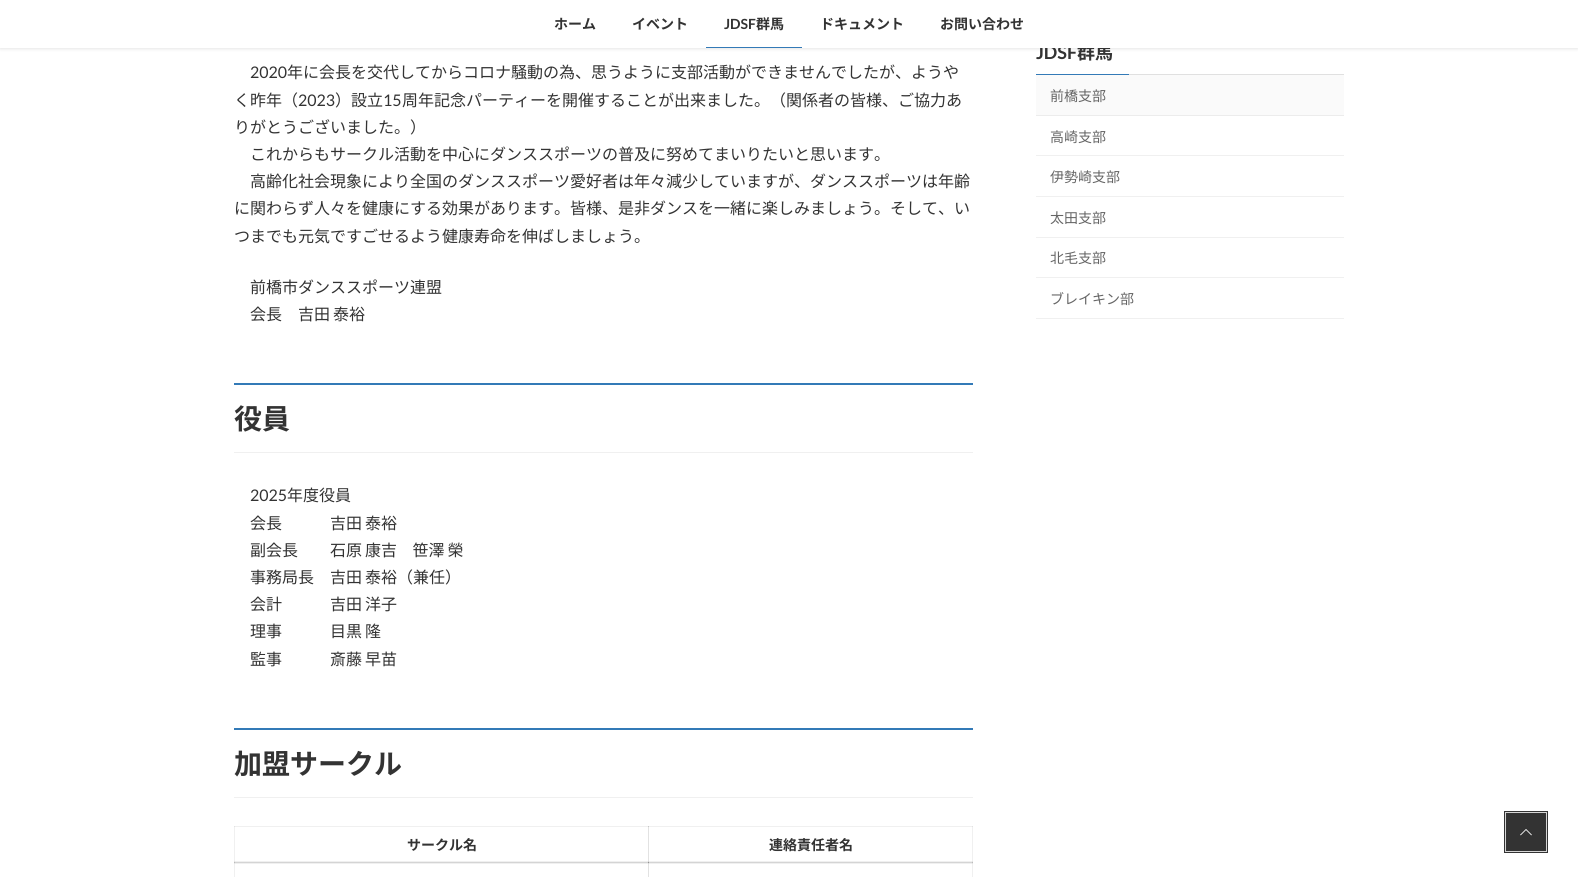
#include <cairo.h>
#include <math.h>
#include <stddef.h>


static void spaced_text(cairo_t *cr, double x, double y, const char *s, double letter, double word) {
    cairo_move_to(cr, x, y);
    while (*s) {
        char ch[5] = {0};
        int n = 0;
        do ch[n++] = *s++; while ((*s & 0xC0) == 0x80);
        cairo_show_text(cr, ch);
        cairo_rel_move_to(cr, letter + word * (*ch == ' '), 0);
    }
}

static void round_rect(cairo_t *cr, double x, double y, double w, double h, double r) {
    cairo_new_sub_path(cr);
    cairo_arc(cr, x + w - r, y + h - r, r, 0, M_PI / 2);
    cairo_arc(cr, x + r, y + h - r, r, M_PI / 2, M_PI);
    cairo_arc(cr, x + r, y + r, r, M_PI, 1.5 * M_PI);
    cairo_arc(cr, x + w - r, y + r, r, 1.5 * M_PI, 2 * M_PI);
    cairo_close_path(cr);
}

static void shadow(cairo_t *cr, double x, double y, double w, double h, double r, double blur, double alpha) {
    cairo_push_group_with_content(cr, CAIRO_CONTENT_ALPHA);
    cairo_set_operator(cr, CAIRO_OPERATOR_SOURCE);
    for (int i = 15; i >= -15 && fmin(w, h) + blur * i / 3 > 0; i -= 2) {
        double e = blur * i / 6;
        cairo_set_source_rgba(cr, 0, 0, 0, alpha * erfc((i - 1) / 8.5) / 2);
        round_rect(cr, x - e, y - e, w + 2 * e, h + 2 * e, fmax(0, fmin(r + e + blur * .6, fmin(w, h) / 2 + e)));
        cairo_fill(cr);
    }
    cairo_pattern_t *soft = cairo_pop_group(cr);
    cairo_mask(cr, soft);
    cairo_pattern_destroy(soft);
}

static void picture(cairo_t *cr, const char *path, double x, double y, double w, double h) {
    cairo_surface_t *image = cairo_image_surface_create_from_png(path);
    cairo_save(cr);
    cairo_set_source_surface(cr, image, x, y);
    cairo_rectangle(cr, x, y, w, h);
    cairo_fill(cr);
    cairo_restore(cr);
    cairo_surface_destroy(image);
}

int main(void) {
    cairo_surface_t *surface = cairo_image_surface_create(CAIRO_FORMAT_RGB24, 1578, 877);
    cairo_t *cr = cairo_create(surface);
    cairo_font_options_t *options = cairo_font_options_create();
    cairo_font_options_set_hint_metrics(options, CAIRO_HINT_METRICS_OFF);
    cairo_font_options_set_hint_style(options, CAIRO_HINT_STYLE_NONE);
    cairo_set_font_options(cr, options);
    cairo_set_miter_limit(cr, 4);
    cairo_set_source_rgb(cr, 1, 1, 1);
    cairo_paint(cr);
    cairo_set_source_rgb(cr, 0.941, 0.941, 0.941);
    cairo_rectangle(cr, 234, 861, 739, 3);
    cairo_fill(cr);
    cairo_rectangle(cr, 234, 826, 1, 37);
    cairo_fill(cr);
    cairo_set_source_rgb(cr, 0.886, 0.886, 0.886);
    cairo_rectangle(cr, 234, 861, 1, 2);
    cairo_fill(cr);
    cairo_set_source_rgb(cr, 0.941, 0.941, 0.941);
    cairo_rectangle(cr, 234, 826, 415, 1);
    cairo_fill(cr);
    cairo_set_source_rgb(cr, 0.886, 0.886, 0.886);
    cairo_rectangle(cr, 234, 826, 1, 1);
    cairo_fill(cr);
    cairo_rectangle(cr, 648, 826, 1, 37);
    cairo_fill(cr);
    cairo_set_source_rgb(cr, 0.831, 0.831, 0.831);
    cairo_rectangle(cr, 648, 861, 1, 2);
    cairo_fill(cr);
    cairo_set_source_rgb(cr, 0.941, 0.941, 0.941);
    cairo_rectangle(cr, 972, 826, 1, 37);
    cairo_fill(cr);
    cairo_set_source_rgb(cr, 0.886, 0.886, 0.886);
    cairo_rectangle(cr, 972, 861, 1, 2);
    cairo_fill(cr);
    cairo_set_source_rgb(cr, 0.941, 0.941, 0.941);
    cairo_rectangle(cr, 234, 862, 1, 15);
    cairo_fill(cr);
    cairo_set_source_rgb(cr, 0.886, 0.886, 0.886);
    cairo_rectangle(cr, 234, 862, 1, 2);
    cairo_fill(cr);
    cairo_set_source_rgb(cr, 0.831, 0.831, 0.831);
    cairo_rectangle(cr, 234, 862, 415, 1);
    cairo_fill(cr);
    cairo_set_source_rgb(cr, 0.733, 0.733, 0.733);
    cairo_rectangle(cr, 234, 862, 1, 1);
    cairo_fill(cr);
    cairo_set_source_rgb(cr, 0.886, 0.886, 0.886);
    cairo_rectangle(cr, 648, 862, 1, 15);
    cairo_fill(cr);
    cairo_set_source_rgb(cr, 0.831, 0.831, 0.831);
    cairo_rectangle(cr, 648, 862, 1, 2);
    cairo_fill(cr);
    cairo_set_source_rgb(cr, 0.941, 0.941, 0.941);
    cairo_rectangle(cr, 972, 862, 1, 15);
    cairo_fill(cr);
    cairo_set_source_rgb(cr, 0.886, 0.886, 0.886);
    cairo_rectangle(cr, 972, 862, 1, 2);
    cairo_fill(cr);
    cairo_set_source_rgb(cr, 0, 0, 0);
    shadow(cr, 0, 1, 1578, 48, 0, 1.5, 0.1);
    cairo_select_font_face(cr, "Lato", CAIRO_FONT_SLANT_NORMAL, CAIRO_FONT_WEIGHT_BOLD);
    cairo_set_font_size(cr, 18);
    cairo_set_source_rgb(cr, 0.2, 0.2, 0.2);
    cairo_move_to(cr, 1036, 59);
    cairo_show_text(cr, "JDSF");
    cairo_select_font_face(cr, "Noto Sans JP", CAIRO_FONT_SLANT_NORMAL, CAIRO_FONT_WEIGHT_BOLD);
    cairo_move_to(cr, 1077, 59);
    cairo_show_text(cr, "群馬");
    cairo_set_source_rgb(cr, 1, 1, 1);
    cairo_rectangle(cr, 0, 0, 1578, 48);
    cairo_fill(cr);
    cairo_set_font_size(cr, 14);
    cairo_set_source_rgb(cr, 0.2, 0.2, 0.2);
    cairo_move_to(cr, 554, 29);
    cairo_show_text(cr, "ホーム");
    cairo_move_to(cr, 632, 29);
    cairo_show_text(cr, "イベント");
    cairo_select_font_face(cr, "Lato", CAIRO_FONT_SLANT_NORMAL, CAIRO_FONT_WEIGHT_BOLD);
    cairo_move_to(cr, 724, 29);
    cairo_show_text(cr, "JDSF");
    cairo_select_font_face(cr, "Noto Sans JP", CAIRO_FONT_SLANT_NORMAL, CAIRO_FONT_WEIGHT_BOLD);
    cairo_move_to(cr, 756, 29);
    cairo_show_text(cr, "群馬");
    cairo_set_source_rgb(cr, 0.2, 0.478, 0.718);
    cairo_rectangle(cr, 706, 47, 96, 1);
    cairo_fill(cr);
    cairo_set_source_rgb(cr, 0.2, 0.2, 0.2);
    cairo_move_to(cr, 820, 29);
    cairo_show_text(cr, "ドキュメント");
    cairo_move_to(cr, 940, 29);
    cairo_show_text(cr, "お問い合わせ");
    cairo_select_font_face(cr, "Lato", CAIRO_FONT_SLANT_NORMAL, CAIRO_FONT_WEIGHT_NORMAL);
    cairo_set_font_size(cr, 16);
    cairo_move_to(cr, 250, 78);
    cairo_show_text(cr, "2020");
    cairo_select_font_face(cr, "Noto Sans JP", CAIRO_FONT_SLANT_NORMAL, CAIRO_FONT_WEIGHT_NORMAL);
    cairo_move_to(cr, 287, 78);
    cairo_show_text(cr, "年に会長を交代してからコロナ騒動の為、思うように支部活動ができませんでしたが、ようや");
    cairo_move_to(cr, 234, 106);
    cairo_show_text(cr, "く昨年（");
    cairo_select_font_face(cr, "Lato", CAIRO_FONT_SLANT_NORMAL, CAIRO_FONT_WEIGHT_NORMAL);
    cairo_move_to(cr, 298, 106);
    cairo_show_text(cr, "2023");
    cairo_select_font_face(cr, "Noto Sans JP", CAIRO_FONT_SLANT_NORMAL, CAIRO_FONT_WEIGHT_NORMAL);
    cairo_move_to(cr, 335, 106);
    cairo_show_text(cr, "）設立");
    cairo_select_font_face(cr, "Lato", CAIRO_FONT_SLANT_NORMAL, CAIRO_FONT_WEIGHT_NORMAL);
    cairo_move_to(cr, 383, 106);
    cairo_show_text(cr, "15");
    cairo_select_font_face(cr, "Noto Sans JP", CAIRO_FONT_SLANT_NORMAL, CAIRO_FONT_WEIGHT_NORMAL);
    cairo_move_to(cr, 402, 106);
    cairo_show_text(cr, "周年記念パーティーを開催することが出来ました。（関係者の皆様、ご協力あ");
    cairo_move_to(cr, 234, 133);
    cairo_show_text(cr, "りがとうございました。）");
    cairo_move_to(cr, 250, 160);
    cairo_show_text(cr, "これからもサークル活動を中心にダンススポーツの普及に努めてまいりたいと思います。");
    cairo_move_to(cr, 250, 187);
    cairo_show_text(cr, "高齢化社会現象により全国のダンススポーツ愛好者は年々減少していますが、ダンススポーツは年齢");
    cairo_move_to(cr, 234, 214);
    cairo_show_text(cr, "に関わらず人々を健康にする効果があります。皆様、是非ダンスを一緒に楽しみましょう。そして、い");
    cairo_move_to(cr, 234, 242);
    cairo_show_text(cr, "つまでも元気ですごせるよう健康寿命を伸ばしましょう。");
    cairo_move_to(cr, 250, 293);
    cairo_show_text(cr, "前橋市ダンススポーツ連盟");
    spaced_text(cr, 250, 320, "会長　吉田 泰裕", 0, -0.5);
    cairo_set_source_rgb(cr, 0.2, 0.478, 0.718);
    cairo_rectangle(cr, 234, 383, 739, 2);
    cairo_fill(cr);
    cairo_set_source_rgb(cr, 0.941, 0.941, 0.941);
    cairo_rectangle(cr, 234, 452, 739, 1);
    cairo_fill(cr);
    cairo_select_font_face(cr, "Noto Sans JP", CAIRO_FONT_SLANT_NORMAL, CAIRO_FONT_WEIGHT_BOLD);
    cairo_set_font_size(cr, 28);
    cairo_set_source_rgb(cr, 0.2, 0.2, 0.2);
    cairo_move_to(cr, 234, 429);
    cairo_show_text(cr, "役員");
    cairo_select_font_face(cr, "Lato", CAIRO_FONT_SLANT_NORMAL, CAIRO_FONT_WEIGHT_NORMAL);
    cairo_set_font_size(cr, 16);
    cairo_move_to(cr, 250, 501);
    cairo_show_text(cr, "2025");
    cairo_select_font_face(cr, "Noto Sans JP", CAIRO_FONT_SLANT_NORMAL, CAIRO_FONT_WEIGHT_NORMAL);
    cairo_move_to(cr, 287, 501);
    cairo_show_text(cr, "年度役員");
    spaced_text(cr, 250, 529, "会長　　　吉田 泰裕", 0, -0.5);
    spaced_text(cr, 250, 556, "副会長　　石原 康吉     笹澤 榮", 0, -0.5);
    spaced_text(cr, 250, 583, "事務局長　吉田 泰裕（兼任）", 0, -0.5);
    spaced_text(cr, 250, 610, "会計　　　吉田 洋子", 0, -0.5);
    spaced_text(cr, 250, 637, "理事　　　目黒 隆", 0, -0.5);
    spaced_text(cr, 250, 665, "監事　　　斎藤 早苗", 0, -0.5);
    cairo_set_source_rgb(cr, 0.2, 0.478, 0.718);
    cairo_rectangle(cr, 234, 728, 739, 2);
    cairo_fill(cr);
    cairo_set_source_rgb(cr, 0.941, 0.941, 0.941);
    cairo_rectangle(cr, 234, 797, 739, 1);
    cairo_fill(cr);
    cairo_select_font_face(cr, "Noto Sans JP", CAIRO_FONT_SLANT_NORMAL, CAIRO_FONT_WEIGHT_BOLD);
    cairo_set_font_size(cr, 28);
    cairo_set_source_rgb(cr, 0.2, 0.2, 0.2);
    cairo_move_to(cr, 234, 774);
    cairo_show_text(cr, "加盟サークル");
    cairo_set_font_size(cr, 14);
    cairo_move_to(cr, 407, 850);
    cairo_show_text(cr, "サークル名");
    cairo_set_source_rgb(cr, 0.941, 0.941, 0.941);
    cairo_rectangle(cr, 648, 826, 325, 1);
    cairo_fill(cr);
    cairo_set_source_rgb(cr, 0.78, 0.78, 0.78);
    cairo_rectangle(cr, 648, 826, 1, 1);
    cairo_fill(cr);
    cairo_set_source_rgb(cr, 0.886, 0.886, 0.886);
    cairo_rectangle(cr, 972, 826, 1, 1);
    cairo_fill(cr);
    cairo_set_source_rgb(cr, 0.2, 0.2, 0.2);
    cairo_move_to(cr, 769, 850);
    cairo_show_text(cr, "連絡責任者名");
    cairo_set_source_rgb(cr, 0.831, 0.831, 0.831);
    cairo_rectangle(cr, 648, 862, 325, 1);
    cairo_fill(cr);
    cairo_set_source_rgb(cr, 0.573, 0.573, 0.573);
    cairo_rectangle(cr, 648, 862, 1, 1);
    cairo_fill(cr);
    cairo_set_source_rgb(cr, 0.733, 0.733, 0.733);
    cairo_rectangle(cr, 972, 862, 1, 1);
    cairo_fill(cr);
    cairo_set_source_rgb(cr, 0.878, 0.878, 0.878);
    cairo_rectangle(cr, 1129, 74, 215, 1);
    cairo_fill(cr);
    cairo_set_source_rgb(cr, 0.2, 0.478, 0.718);
    cairo_rectangle(cr, 1036, 74, 93, 1);
    cairo_fill(cr);
    cairo_set_source_rgb(cr, 0.98, 0.98, 0.98);
    cairo_rectangle(cr, 1036, 75, 308, 40);
    cairo_fill(cr);
    cairo_set_source_rgb(cr, 0.922, 0.922, 0.922);
    cairo_rectangle(cr, 1036, 115, 308, 1);
    cairo_fill(cr);
    cairo_select_font_face(cr, "Noto Sans JP", CAIRO_FONT_SLANT_NORMAL, CAIRO_FONT_WEIGHT_NORMAL);
    cairo_set_source_rgb(cr, 0.4, 0.4, 0.4);
    cairo_move_to(cr, 1050, 101);
    cairo_show_text(cr, "前橋支部");
    cairo_set_source_rgb(cr, 0.941, 0.941, 0.941);
    cairo_rectangle(cr, 1036, 155, 308, 1);
    cairo_fill(cr);
    cairo_set_source_rgb(cr, 0.4, 0.4, 0.4);
    cairo_move_to(cr, 1050, 142);
    cairo_show_text(cr, "高崎支部");
    cairo_set_source_rgb(cr, 0.941, 0.941, 0.941);
    cairo_rectangle(cr, 1036, 196, 308, 1);
    cairo_fill(cr);
    cairo_set_source_rgb(cr, 0.4, 0.4, 0.4);
    cairo_move_to(cr, 1050, 182);
    cairo_show_text(cr, "伊勢崎支部");
    cairo_set_source_rgb(cr, 0.941, 0.941, 0.941);
    cairo_rectangle(cr, 1036, 237, 308, 1);
    cairo_fill(cr);
    cairo_set_source_rgb(cr, 0.4, 0.4, 0.4);
    cairo_move_to(cr, 1050, 223);
    cairo_show_text(cr, "太田支部");
    cairo_set_source_rgb(cr, 0.941, 0.941, 0.941);
    cairo_rectangle(cr, 1036, 277, 308, 1);
    cairo_fill(cr);
    cairo_set_source_rgb(cr, 0.4, 0.4, 0.4);
    cairo_move_to(cr, 1050, 263);
    cairo_show_text(cr, "北毛支部");
    cairo_set_source_rgb(cr, 0.941, 0.941, 0.941);
    cairo_rectangle(cr, 1036, 318, 308, 1);
    cairo_fill(cr);
    cairo_set_source_rgb(cr, 0.4, 0.4, 0.4);
    cairo_move_to(cr, 1050, 304);
    cairo_show_text(cr, "ブレイキン部");
    cairo_rectangle(cr, 1505, 812, 42, 40);
    cairo_set_source_rgb(cr, 0.2, 0.2, 0.2);
    cairo_stroke(cr);
    cairo_rectangle(cr, 1505.5, 812.5, 41, 39);
    cairo_set_source_rgb(cr, 0.839, 0.839, 0.839);
    cairo_set_line_width(cr, 1);
    cairo_stroke(cr);
    cairo_set_source_rgb(cr, 0.2, 0.2, 0.2);
    cairo_rectangle(cr, 1506, 813, 40, 38);
    cairo_fill(cr);
    picture(cr, "img1.png", 1520, 829, 12, 7);
    cairo_surface_write_to_png(surface, "page.png");
    cairo_font_options_destroy(options);
    cairo_destroy(cr);
    cairo_surface_destroy(surface);
    return 0;
}
